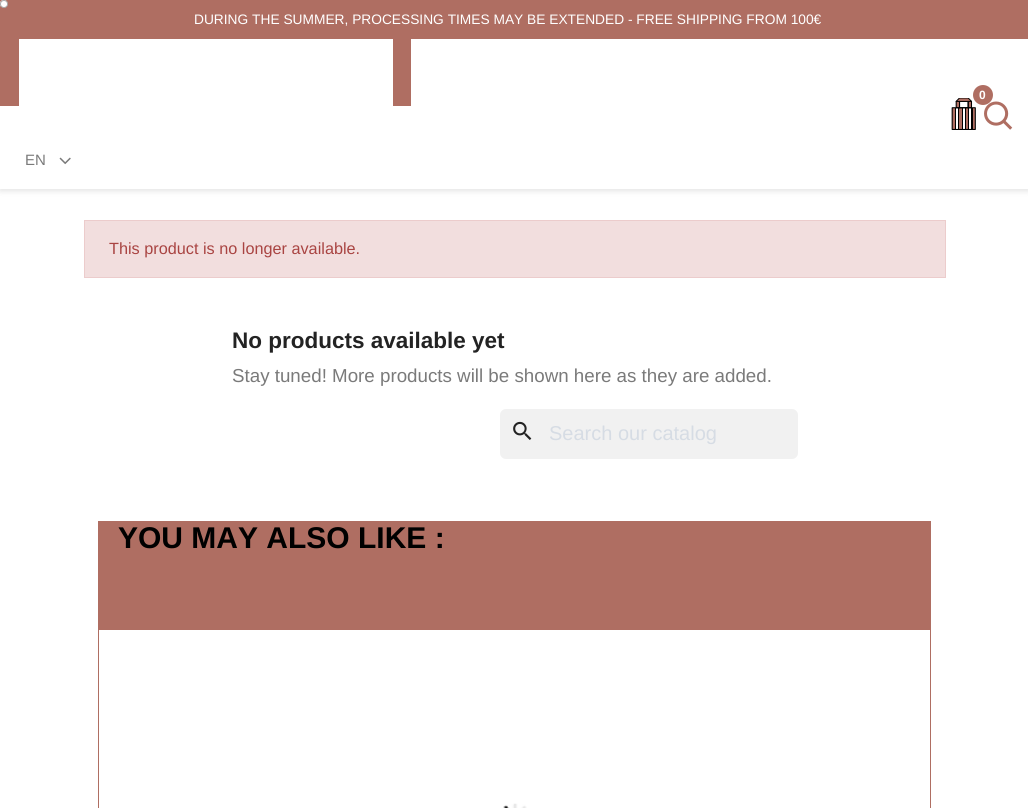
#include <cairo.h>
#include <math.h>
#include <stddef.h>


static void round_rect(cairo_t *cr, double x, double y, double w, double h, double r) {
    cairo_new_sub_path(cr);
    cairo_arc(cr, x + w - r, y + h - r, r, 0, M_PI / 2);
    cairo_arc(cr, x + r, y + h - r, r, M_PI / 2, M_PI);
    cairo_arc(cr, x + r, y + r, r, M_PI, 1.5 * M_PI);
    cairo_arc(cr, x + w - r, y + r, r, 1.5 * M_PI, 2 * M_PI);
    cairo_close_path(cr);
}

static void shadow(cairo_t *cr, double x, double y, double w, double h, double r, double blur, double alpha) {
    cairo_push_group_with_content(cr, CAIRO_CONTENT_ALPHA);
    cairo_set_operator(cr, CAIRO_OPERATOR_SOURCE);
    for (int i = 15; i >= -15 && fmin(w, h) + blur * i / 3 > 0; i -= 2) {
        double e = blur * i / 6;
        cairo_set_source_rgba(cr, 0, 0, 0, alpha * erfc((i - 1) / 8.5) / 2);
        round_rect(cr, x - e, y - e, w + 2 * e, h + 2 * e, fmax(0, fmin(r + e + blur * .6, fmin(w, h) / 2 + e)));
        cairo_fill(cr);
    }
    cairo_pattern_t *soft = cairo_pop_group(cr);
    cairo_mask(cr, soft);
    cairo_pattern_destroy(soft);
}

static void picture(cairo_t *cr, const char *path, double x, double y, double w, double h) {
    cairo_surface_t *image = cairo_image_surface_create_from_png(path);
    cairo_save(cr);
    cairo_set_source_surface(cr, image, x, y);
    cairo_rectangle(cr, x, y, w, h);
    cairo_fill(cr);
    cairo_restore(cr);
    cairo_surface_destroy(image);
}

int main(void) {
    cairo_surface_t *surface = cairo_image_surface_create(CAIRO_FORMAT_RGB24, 1028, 808);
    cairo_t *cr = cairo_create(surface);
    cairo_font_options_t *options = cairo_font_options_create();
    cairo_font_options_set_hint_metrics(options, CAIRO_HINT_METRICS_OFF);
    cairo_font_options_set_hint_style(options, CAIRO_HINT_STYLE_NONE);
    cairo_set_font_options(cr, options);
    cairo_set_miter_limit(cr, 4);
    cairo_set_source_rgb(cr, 1, 1, 1);
    cairo_paint(cr);
    cairo_set_source_rgb(cr, 0, 0, 0);
    shadow(cr, 0, 3, 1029, 188, 0, 3, 0.11);
    cairo_set_source_rgb(cr, 0.686, 0.431, 0.384);
    cairo_rectangle(cr, 0, 0, 1028, 39);
    cairo_fill(cr);
    picture(cr, "img1.png", 0, 0, 8, 8);
    cairo_arc(cr, 4, 4, 3.5, 0, 2 * M_PI);
    cairo_set_source_rgb(cr, 0.667, 0.667, 0.667);
    cairo_set_line_width(cr, 1);
    cairo_stroke(cr);
    cairo_set_source_rgb(cr, 1, 1, 1);
    cairo_rectangle(cr, 0, 39, 1028, 150);
    cairo_fill(cr);
    cairo_select_font_face(cr, "Liberation Sans", CAIRO_FONT_SLANT_NORMAL, CAIRO_FONT_WEIGHT_NORMAL);
    cairo_set_font_size(cr, 13.75);
    cairo_move_to(cr, 194, 24);
    cairo_show_text(cr, "DURING THE SUMMER, PROCESSING TIMES MAY BE EXTENDED - FREE SHIPPING FROM 100€");
    picture(cr, "img2.png", 951, 98, 25, 32);
    cairo_set_source_rgb(cr, 0.686, 0.431, 0.384);
    cairo_arc(cr, 983, 95, 10, 0, 2 * M_PI);
    cairo_fill(cr);
    cairo_select_font_face(cr, "Liberation Sans", CAIRO_FONT_SLANT_NORMAL, CAIRO_FONT_WEIGHT_BOLD);
    cairo_set_font_size(cr, 12);
    cairo_set_source_rgb(cr, 1, 1, 1);
    cairo_move_to(cr, 979, 99);
    cairo_show_text(cr, "0");
    picture(cr, "img3.png", 984, 101, 29, 29);
    cairo_set_source_rgb(cr, 0.686, 0.431, 0.384);
    cairo_rectangle(cr, 0, 39, 411, 67);
    cairo_fill(cr);
    cairo_set_source_rgb(cr, 1, 1, 1);
    cairo_rectangle(cr, 19, 39, 374, 67);
    cairo_fill(cr);
    cairo_select_font_face(cr, "Liberation Sans", CAIRO_FONT_SLANT_NORMAL, CAIRO_FONT_WEIGHT_NORMAL);
    cairo_set_font_size(cr, 15);
    cairo_set_source_rgb(cr, 0.478, 0.478, 0.478);
    cairo_move_to(cr, 25, 165);
    cairo_show_text(cr, "EN");
    picture(cr, "img4.png", 59, 157, 12, 8);
    cairo_set_source_rgb(cr, 0.949, 0.871, 0.871);
    cairo_rectangle(cr, 84.5, 220.5, 861, 57);
    cairo_fill_preserve(cr);
    cairo_set_source_rgb(cr, 0.922, 0.8, 0.8);
    cairo_stroke(cr);
    cairo_set_font_size(cr, 16.25);
    cairo_set_source_rgb(cr, 0.663, 0.267, 0.259);
    cairo_move_to(cr, 109, 254);
    cairo_show_text(cr, "This product is no longer available.");
    cairo_select_font_face(cr, "Liberation Sans", CAIRO_FONT_SLANT_NORMAL, CAIRO_FONT_WEIGHT_BOLD);
    cairo_set_font_size(cr, 22.5);
    cairo_set_source_rgb(cr, 0.137, 0.137, 0.137);
    cairo_move_to(cr, 232, 348);
    cairo_show_text(cr, "No products available yet");
    cairo_select_font_face(cr, "Liberation Sans", CAIRO_FONT_SLANT_NORMAL, CAIRO_FONT_WEIGHT_NORMAL);
    cairo_set_font_size(cr, 18.75);
    cairo_set_source_rgb(cr, 0.478, 0.478, 0.478);
    cairo_move_to(cr, 232, 382);
    cairo_show_text(cr, "Stay tuned! More products will be shown here as they are added.");
    cairo_set_source_rgb(cr, 0.945, 0.945, 0.945);
    round_rect(cr, 500, 409, 298, 50, 6);
    cairo_fill(cr);
    picture(cr, "img5.png", 513, 421, 19, 19);
    cairo_set_font_size(cr, 20);
    cairo_set_source_rgb(cr, 0.839, 0.863, 0.894);
    cairo_move_to(cr, 549, 440);
    cairo_show_text(cr, "Search our catalog");
    cairo_set_source_rgb(cr, 0.686, 0.431, 0.384);
    cairo_rectangle(cr, 98, 521, 833, 287);
    cairo_fill(cr);
    cairo_select_font_face(cr, "Liberation Sans", CAIRO_FONT_SLANT_NORMAL, CAIRO_FONT_WEIGHT_BOLD);
    cairo_set_font_size(cr, 30);
    cairo_set_source_rgb(cr, 0, 0, 0);
    cairo_move_to(cr, 118, 548);
    cairo_show_text(cr, "YOU MAY ALSO LIKE :");
    cairo_set_source_rgb(cr, 1, 1, 1);
    cairo_rectangle(cr, 99, 630, 831, 178);
    cairo_fill(cr);
    picture(cr, "img6.png", 503, 803, 24, 5);
    cairo_surface_write_to_png(surface, "page.png");
    cairo_font_options_destroy(options);
    cairo_destroy(cr);
    cairo_surface_destroy(surface);
    return 0;
}
